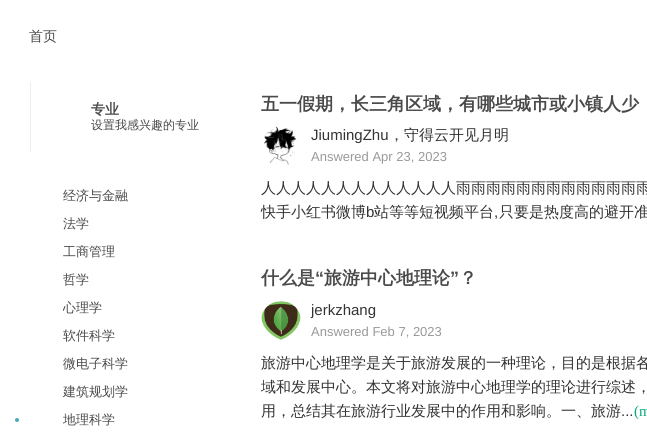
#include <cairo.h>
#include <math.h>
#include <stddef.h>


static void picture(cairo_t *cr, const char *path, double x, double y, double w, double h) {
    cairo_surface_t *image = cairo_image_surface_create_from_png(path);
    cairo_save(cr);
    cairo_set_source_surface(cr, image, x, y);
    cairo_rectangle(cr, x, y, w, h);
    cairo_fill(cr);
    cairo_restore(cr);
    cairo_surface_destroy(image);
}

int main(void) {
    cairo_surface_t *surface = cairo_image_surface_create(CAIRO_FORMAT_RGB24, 647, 434);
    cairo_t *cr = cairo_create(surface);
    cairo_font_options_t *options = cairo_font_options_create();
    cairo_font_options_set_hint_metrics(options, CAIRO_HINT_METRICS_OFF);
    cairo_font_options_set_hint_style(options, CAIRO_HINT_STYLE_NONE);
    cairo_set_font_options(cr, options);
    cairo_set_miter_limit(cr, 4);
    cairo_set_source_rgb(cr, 1, 1, 1);
    cairo_paint(cr);
    cairo_select_font_face(cr, "WenQuanYi Zen Hei Medium", CAIRO_FONT_SLANT_NORMAL, CAIRO_FONT_WEIGHT_NORMAL);
    cairo_set_font_size(cr, 14);
    cairo_set_source_rgb(cr, 0.29, 0.29, 0.29);
    cairo_move_to(cr, 29, 41);
    cairo_show_text(cr, "首页");
    cairo_set_source_rgb(cr, 0.929, 0.929, 0.929);
    cairo_rectangle(cr, 30, 82, 1, 70);
    cairo_fill(cr);
    cairo_select_font_face(cr, "WenQuanYi Zen Hei", CAIRO_FONT_SLANT_NORMAL, CAIRO_FONT_WEIGHT_BOLD);
    cairo_set_source_rgb(cr, 0.29, 0.29, 0.29);
    cairo_move_to(cr, 91, 114);
    cairo_show_text(cr, "专业");
    cairo_select_font_face(cr, "WenQuanYi Zen Hei Medium", CAIRO_FONT_SLANT_NORMAL, CAIRO_FONT_WEIGHT_NORMAL);
    cairo_set_font_size(cr, 12);
    cairo_move_to(cr, 91, 129);
    cairo_show_text(cr, "设置我感兴趣的专业");
    cairo_set_font_size(cr, 13);
    cairo_move_to(cr, 63, 200);
    cairo_show_text(cr, "经济与金融");
    cairo_move_to(cr, 63, 228);
    cairo_show_text(cr, "法学");
    cairo_move_to(cr, 63, 256);
    cairo_show_text(cr, "工商管理");
    cairo_move_to(cr, 63, 284);
    cairo_show_text(cr, "哲学");
    cairo_move_to(cr, 63, 312);
    cairo_show_text(cr, "心理学");
    cairo_move_to(cr, 63, 340);
    cairo_show_text(cr, "软件科学");
    cairo_move_to(cr, 63, 368);
    cairo_show_text(cr, "微电子科学");
    cairo_move_to(cr, 63, 396);
    cairo_show_text(cr, "建筑规划学");
    cairo_set_source_rgb(cr, 0.275, 0.675, 0.714);
    cairo_new_path(cr);
    cairo_arc(cr, 17, 420, 2, 0, 2 * M_PI);
    cairo_fill(cr);
    cairo_set_source_rgb(cr, 0.29, 0.29, 0.29);
    cairo_move_to(cr, 63, 424);
    cairo_show_text(cr, "地理科学");
    cairo_select_font_face(cr, "WenQuanYi Zen Hei", CAIRO_FONT_SLANT_NORMAL, CAIRO_FONT_WEIGHT_BOLD);
    cairo_set_font_size(cr, 18);
    cairo_move_to(cr, 261, 110);
    cairo_show_text(cr, "五一假期，长三角区域，有哪些城市或小镇人少");
    picture(cr, "img1.png", 263, 126, 34, 39);
    cairo_select_font_face(cr, "Liberation Sans", CAIRO_FONT_SLANT_NORMAL, CAIRO_FONT_WEIGHT_NORMAL);
    cairo_set_font_size(cr, 15);
    cairo_set_source_rgb(cr, 0.2, 0.2, 0.2);
    cairo_move_to(cr, 311, 140);
    cairo_show_text(cr, "JiumingZhu");
    cairo_select_font_face(cr, "WenQuanYi Zen Hei Medium", CAIRO_FONT_SLANT_NORMAL, CAIRO_FONT_WEIGHT_NORMAL);
    cairo_move_to(cr, 389, 140);
    cairo_show_text(cr, "，守得云开见月明");
    cairo_select_font_face(cr, "Liberation Sans", CAIRO_FONT_SLANT_NORMAL, CAIRO_FONT_WEIGHT_NORMAL);
    cairo_set_font_size(cr, 13);
    cairo_set_source_rgb(cr, 0.6, 0.6, 0.6);
    cairo_move_to(cr, 311, 161);
    cairo_show_text(cr, "Answered Apr 23, 2023");
    cairo_select_font_face(cr, "WenQuanYi Zen Hei Medium", CAIRO_FONT_SLANT_NORMAL, CAIRO_FONT_WEIGHT_NORMAL);
    cairo_set_font_size(cr, 15);
    cairo_set_source_rgb(cr, 0.2, 0.2, 0.2);
    cairo_move_to(cr, 261, 193);
    cairo_show_text(cr, "人人人人人人人人人人人人人雨雨雨雨雨雨雨雨雨雨雨雨雨");
    cairo_move_to(cr, 261, 217);
    cairo_show_text(cr, "快手小红书微博");
    cairo_select_font_face(cr, "Liberation Sans", CAIRO_FONT_SLANT_NORMAL, CAIRO_FONT_WEIGHT_NORMAL);
    cairo_move_to(cr, 366, 217);
    cairo_show_text(cr, "b");
    cairo_select_font_face(cr, "WenQuanYi Zen Hei Medium", CAIRO_FONT_SLANT_NORMAL, CAIRO_FONT_WEIGHT_NORMAL);
    cairo_move_to(cr, 374, 217);
    cairo_show_text(cr, "站等等短视频平台");
    cairo_select_font_face(cr, "Liberation Sans", CAIRO_FONT_SLANT_NORMAL, CAIRO_FONT_WEIGHT_NORMAL);
    cairo_move_to(cr, 494, 217);
    cairo_show_text(cr, ",");
    cairo_select_font_face(cr, "WenQuanYi Zen Hei Medium", CAIRO_FONT_SLANT_NORMAL, CAIRO_FONT_WEIGHT_NORMAL);
    cairo_move_to(cr, 499, 217);
    cairo_show_text(cr, "只要是热度高的避开准");
    cairo_select_font_face(cr, "WenQuanYi Zen Hei", CAIRO_FONT_SLANT_NORMAL, CAIRO_FONT_WEIGHT_BOLD);
    cairo_set_font_size(cr, 18);
    cairo_set_source_rgb(cr, 0.29, 0.29, 0.29);
    cairo_move_to(cr, 261, 284);
    cairo_show_text(cr, "什么是");
    cairo_select_font_face(cr, "Liberation Sans", CAIRO_FONT_SLANT_NORMAL, CAIRO_FONT_WEIGHT_BOLD);
    cairo_move_to(cr, 315, 284);
    cairo_show_text(cr, "“");
    cairo_select_font_face(cr, "WenQuanYi Zen Hei", CAIRO_FONT_SLANT_NORMAL, CAIRO_FONT_WEIGHT_BOLD);
    cairo_move_to(cr, 324, 284);
    cairo_show_text(cr, "旅游中心地理论");
    cairo_select_font_face(cr, "Liberation Sans", CAIRO_FONT_SLANT_NORMAL, CAIRO_FONT_WEIGHT_BOLD);
    cairo_move_to(cr, 450, 284);
    cairo_show_text(cr, "”");
    cairo_select_font_face(cr, "WenQuanYi Zen Hei", CAIRO_FONT_SLANT_NORMAL, CAIRO_FONT_WEIGHT_BOLD);
    cairo_move_to(cr, 459, 284);
    cairo_show_text(cr, "？");
    picture(cr, "img2.png", 261, 301, 40, 39);
    cairo_select_font_face(cr, "Liberation Sans", CAIRO_FONT_SLANT_NORMAL, CAIRO_FONT_WEIGHT_NORMAL);
    cairo_set_font_size(cr, 15);
    cairo_set_source_rgb(cr, 0.2, 0.2, 0.2);
    cairo_move_to(cr, 311, 315);
    cairo_show_text(cr, "jerkzhang");
    cairo_set_font_size(cr, 13);
    cairo_set_source_rgb(cr, 0.6, 0.6, 0.6);
    cairo_move_to(cr, 311, 336);
    cairo_show_text(cr, "Answered Feb 7, 2023");
    cairo_select_font_face(cr, "WenQuanYi Zen Hei Medium", CAIRO_FONT_SLANT_NORMAL, CAIRO_FONT_WEIGHT_NORMAL);
    cairo_set_font_size(cr, 15);
    cairo_set_source_rgb(cr, 0.2, 0.2, 0.2);
    cairo_move_to(cr, 261, 368);
    cairo_show_text(cr, "旅游中心地理学是关于旅游发展的一种理论，目的是根据各");
    cairo_move_to(cr, 261, 392);
    cairo_show_text(cr, "域和发展中心。本文将对旅游中心地理学的理论进行综述，");
    cairo_move_to(cr, 261, 416);
    cairo_show_text(cr, "用，总结其在旅游行业发展中的作用和影响。一、旅游");
    cairo_select_font_face(cr, "Liberation Sans", CAIRO_FONT_SLANT_NORMAL, CAIRO_FONT_WEIGHT_NORMAL);
    cairo_move_to(cr, 621, 416);
    cairo_show_text(cr, "...");
    cairo_select_font_face(cr, "Liberation Serif", CAIRO_FONT_SLANT_NORMAL, CAIRO_FONT_WEIGHT_NORMAL);
    cairo_set_source_rgb(cr, 0.012, 0.659, 0.486);
    cairo_move_to(cr, 634, 416);
    cairo_show_text(cr, "(m");
    cairo_surface_write_to_png(surface, "page.png");
    cairo_font_options_destroy(options);
    cairo_destroy(cr);
    cairo_surface_destroy(surface);
    return 0;
}
